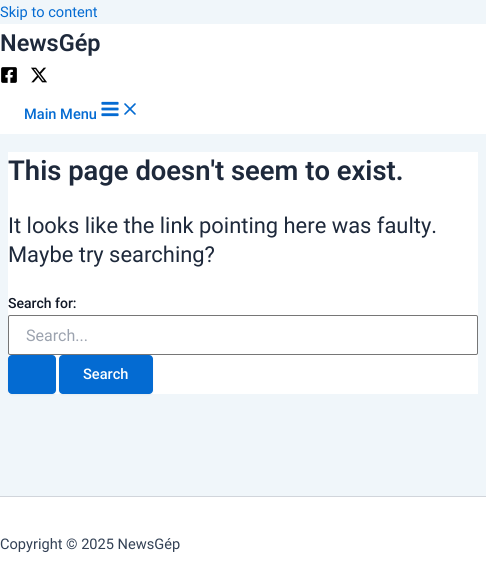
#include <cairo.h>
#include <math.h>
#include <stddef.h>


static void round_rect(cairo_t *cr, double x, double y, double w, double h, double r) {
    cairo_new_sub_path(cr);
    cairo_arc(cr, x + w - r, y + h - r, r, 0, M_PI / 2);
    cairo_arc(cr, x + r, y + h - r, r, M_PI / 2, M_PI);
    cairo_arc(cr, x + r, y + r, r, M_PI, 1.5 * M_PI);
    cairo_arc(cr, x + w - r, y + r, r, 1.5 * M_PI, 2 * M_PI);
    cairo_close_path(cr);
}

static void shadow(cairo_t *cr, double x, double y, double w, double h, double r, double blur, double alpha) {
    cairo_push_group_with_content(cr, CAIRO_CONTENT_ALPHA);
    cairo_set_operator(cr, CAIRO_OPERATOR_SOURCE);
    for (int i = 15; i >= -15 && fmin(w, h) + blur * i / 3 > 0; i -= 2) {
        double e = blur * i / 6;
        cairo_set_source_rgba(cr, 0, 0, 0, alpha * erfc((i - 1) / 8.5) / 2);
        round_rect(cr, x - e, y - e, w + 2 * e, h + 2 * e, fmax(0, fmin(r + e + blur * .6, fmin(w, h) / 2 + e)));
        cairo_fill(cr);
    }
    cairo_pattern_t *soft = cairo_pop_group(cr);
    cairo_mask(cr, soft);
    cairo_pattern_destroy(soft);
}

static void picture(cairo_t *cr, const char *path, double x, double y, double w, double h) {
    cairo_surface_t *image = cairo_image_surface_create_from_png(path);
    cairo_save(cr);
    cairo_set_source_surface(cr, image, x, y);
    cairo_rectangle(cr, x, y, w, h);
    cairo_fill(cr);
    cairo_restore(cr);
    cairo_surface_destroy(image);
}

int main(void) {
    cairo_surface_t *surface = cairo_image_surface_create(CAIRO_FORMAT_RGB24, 486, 573);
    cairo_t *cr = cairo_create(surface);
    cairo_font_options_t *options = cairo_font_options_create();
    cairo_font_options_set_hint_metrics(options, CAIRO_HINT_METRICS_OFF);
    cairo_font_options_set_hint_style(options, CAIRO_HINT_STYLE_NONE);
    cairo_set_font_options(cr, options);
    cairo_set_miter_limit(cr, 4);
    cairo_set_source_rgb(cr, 0.941, 0.961, 0.98);
    cairo_paint(cr);
    cairo_select_font_face(cr, "Roboto", CAIRO_FONT_SLANT_NORMAL, CAIRO_FONT_WEIGHT_NORMAL);
    cairo_set_font_size(cr, 14.6);
    cairo_set_source_rgb(cr, 0.016, 0.42, 0.824);
    cairo_move_to(cr, 0, 17);
    cairo_show_text(cr, "Skip to content");
    cairo_set_source_rgb(cr, 1, 1, 1);
    cairo_rectangle(cr, 0, 24, 486, 110);
    cairo_fill(cr);
    cairo_select_font_face(cr, "Roboto SemiBold", CAIRO_FONT_SLANT_NORMAL, CAIRO_FONT_WEIGHT_NORMAL);
    cairo_set_font_size(cr, 23.5);
    cairo_set_source_rgb(cr, 0.118, 0.161, 0.231);
    cairo_move_to(cr, 0, 51);
    cairo_show_text(cr, "NewsGép");
    picture(cr, "img1.png", 1, 67, 16, 16);
    picture(cr, "img2.png", 31, 67, 16, 16);
    cairo_select_font_face(cr, "Roboto Medium", CAIRO_FONT_SLANT_NORMAL, CAIRO_FONT_WEIGHT_NORMAL);
    cairo_set_font_size(cr, 14.6);
    cairo_set_source_rgb(cr, 0.016, 0.42, 0.824);
    cairo_move_to(cr, 24, 119);
    cairo_show_text(cr, "Main Menu");
    picture(cr, "img3.png", 101, 101, 18, 16);
    picture(cr, "img4.png", 124, 103, 12, 12);
    cairo_set_source_rgb(cr, 1, 1, 1);
    cairo_rectangle(cr, 8, 152, 470, 242);
    cairo_fill(cr);
    cairo_select_font_face(cr, "Roboto SemiBold", CAIRO_FONT_SLANT_NORMAL, CAIRO_FONT_WEIGHT_NORMAL);
    cairo_set_font_size(cr, 27.4);
    cairo_set_source_rgb(cr, 0.118, 0.161, 0.231);
    cairo_move_to(cr, 8, 180);
    cairo_show_text(cr, "This page doesn't seem to exist.");
    cairo_select_font_face(cr, "Roboto", CAIRO_FONT_SLANT_NORMAL, CAIRO_FONT_WEIGHT_NORMAL);
    cairo_set_font_size(cr, 21.9);
    cairo_move_to(cr, 8, 233);
    cairo_show_text(cr, "It looks like the link pointing here was faulty.");
    cairo_move_to(cr, 8, 262);
    cairo_show_text(cr, "Maybe try searching?");
    cairo_select_font_face(cr, "Roboto Medium", CAIRO_FONT_SLANT_NORMAL, CAIRO_FONT_WEIGHT_NORMAL);
    cairo_set_font_size(cr, 14);
    cairo_set_source_rgb(cr, 0.067, 0.094, 0.153);
    cairo_move_to(cr, 8, 308);
    cairo_show_text(cr, "Search for:");
    round_rect(cr, 8.5, 315.5, 469, 39, 1.5);
    cairo_set_source_rgb(cr, 0.463, 0.463, 0.463);
    cairo_set_line_width(cr, 1);
    cairo_stroke(cr);
    cairo_select_font_face(cr, "Roboto", CAIRO_FONT_SLANT_NORMAL, CAIRO_FONT_WEIGHT_NORMAL);
    cairo_set_font_size(cr, 16);
    cairo_set_source_rgb(cr, 0.612, 0.639, 0.686);
    cairo_move_to(cr, 26, 341);
    cairo_show_text(cr, "Search...");
    cairo_set_source_rgb(cr, 0, 0, 0);
    shadow(cr, 8, 356, 48, 39, 4, 1, 0.05);
    cairo_set_source_rgb(cr, 0.016, 0.42, 0.824);
    round_rect(cr, 8, 355, 48, 39, 4);
    cairo_fill(cr);
    cairo_set_source_rgb(cr, 0, 0, 0);
    shadow(cr, 59, 356, 94, 39, 4, 1, 0.05);
    cairo_set_source_rgb(cr, 0.016, 0.42, 0.824);
    round_rect(cr, 59, 355, 94, 39, 4);
    cairo_fill(cr);
    cairo_select_font_face(cr, "Roboto Medium", CAIRO_FONT_SLANT_NORMAL, CAIRO_FONT_WEIGHT_NORMAL);
    cairo_set_font_size(cr, 14.6);
    cairo_set_source_rgb(cr, 1, 1, 1);
    cairo_move_to(cr, 83, 379);
    cairo_show_text(cr, "Search");
    cairo_rectangle(cr, 0, 497, 486, 76);
    cairo_fill(cr);
    cairo_set_source_rgb(cr, 0.82, 0.835, 0.859);
    cairo_rectangle(cr, 0, 496, 486, 1);
    cairo_fill(cr);
    cairo_select_font_face(cr, "Roboto", CAIRO_FONT_SLANT_NORMAL, CAIRO_FONT_WEIGHT_NORMAL);
    cairo_set_source_rgb(cr, 0.2, 0.255, 0.333);
    cairo_move_to(cr, 0, 549);
    cairo_show_text(cr, "Copyright © 2025 NewsGép");
    cairo_surface_write_to_png(surface, "page.png");
    cairo_font_options_destroy(options);
    cairo_destroy(cr);
    cairo_surface_destroy(surface);
    return 0;
}
